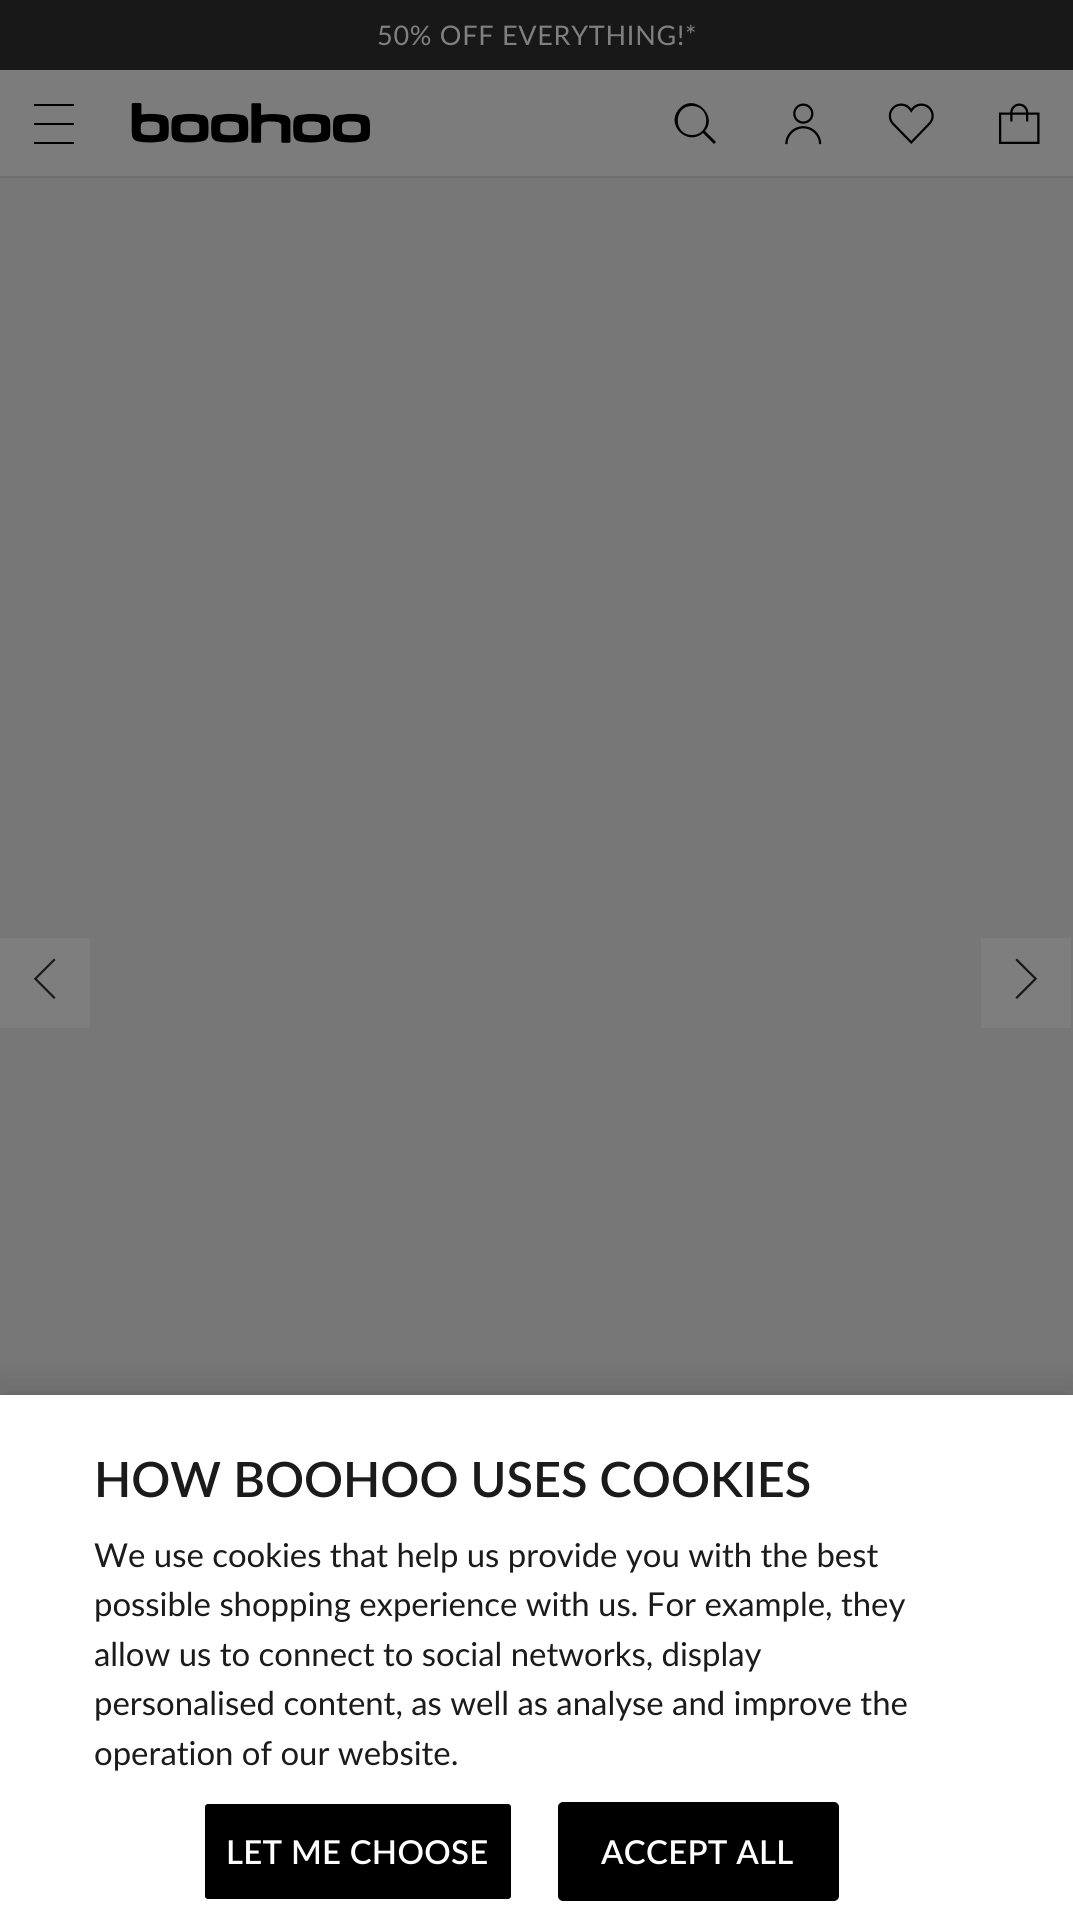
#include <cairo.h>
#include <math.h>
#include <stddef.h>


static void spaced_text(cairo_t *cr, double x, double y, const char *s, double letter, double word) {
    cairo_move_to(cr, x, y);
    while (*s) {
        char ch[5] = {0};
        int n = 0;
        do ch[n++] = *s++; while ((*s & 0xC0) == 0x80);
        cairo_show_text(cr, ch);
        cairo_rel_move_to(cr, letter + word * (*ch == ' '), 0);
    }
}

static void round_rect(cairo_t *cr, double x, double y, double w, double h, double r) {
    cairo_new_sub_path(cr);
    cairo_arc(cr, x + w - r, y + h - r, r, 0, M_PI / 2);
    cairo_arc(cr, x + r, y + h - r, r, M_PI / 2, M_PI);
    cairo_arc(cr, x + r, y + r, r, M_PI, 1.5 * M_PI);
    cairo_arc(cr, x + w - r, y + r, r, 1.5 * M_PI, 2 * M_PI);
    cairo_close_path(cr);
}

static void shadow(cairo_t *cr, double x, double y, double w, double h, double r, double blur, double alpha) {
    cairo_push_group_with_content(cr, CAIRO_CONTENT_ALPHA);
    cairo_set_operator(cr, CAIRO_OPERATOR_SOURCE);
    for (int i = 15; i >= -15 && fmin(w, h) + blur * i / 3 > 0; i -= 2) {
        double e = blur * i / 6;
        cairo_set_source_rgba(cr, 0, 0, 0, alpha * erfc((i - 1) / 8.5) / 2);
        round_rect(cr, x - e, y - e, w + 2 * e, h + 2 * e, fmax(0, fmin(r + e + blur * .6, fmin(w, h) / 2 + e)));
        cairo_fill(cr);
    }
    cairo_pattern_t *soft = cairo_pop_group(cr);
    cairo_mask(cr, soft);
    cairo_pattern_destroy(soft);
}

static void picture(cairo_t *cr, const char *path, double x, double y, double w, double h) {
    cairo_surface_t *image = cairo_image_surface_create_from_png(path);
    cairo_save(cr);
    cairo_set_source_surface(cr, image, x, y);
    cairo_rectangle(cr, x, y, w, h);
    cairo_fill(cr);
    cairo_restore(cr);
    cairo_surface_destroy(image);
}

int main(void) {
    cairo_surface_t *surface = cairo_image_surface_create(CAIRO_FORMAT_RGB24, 1073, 1930);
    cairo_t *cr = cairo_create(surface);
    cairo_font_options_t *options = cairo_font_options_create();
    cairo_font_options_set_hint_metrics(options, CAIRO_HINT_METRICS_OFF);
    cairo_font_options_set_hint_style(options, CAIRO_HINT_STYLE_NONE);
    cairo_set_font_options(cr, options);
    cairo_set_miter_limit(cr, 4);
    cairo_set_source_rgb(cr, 0.471, 0.467, 0.471);
    cairo_paint(cr);
    cairo_set_source_rgb(cr, 0.486, 0.486, 0.486);
    cairo_rectangle(cr, 0, 70, 1073, 106);
    cairo_fill(cr);
    cairo_set_source_rgb(cr, 0.094, 0.094, 0.094);
    cairo_rectangle(cr, 0, 0, 1073, 70);
    cairo_fill(cr);
    cairo_select_font_face(cr, "Lato", CAIRO_FONT_SLANT_NORMAL, CAIRO_FONT_WEIGHT_NORMAL);
    cairo_set_font_size(cr, 27);
    cairo_set_source_rgb(cr, 0.502, 0.502, 0.502);
    spaced_text(cr, 377, 45, "50% OFF EVERYTHING!*", 0.75, 0);
    cairo_set_source_rgb(cr, 0.435, 0.435, 0.435);
    cairo_rectangle(cr, 0, 176, 1073, 2);
    cairo_fill(cr);
    cairo_set_source_rgb(cr, 0, 0, 0);
    cairo_rectangle(cr, 34, 104, 40, 2);
    cairo_fill(cr);
    cairo_rectangle(cr, 34, 142, 40, 2);
    cairo_fill(cr);
    cairo_rectangle(cr, 34, 123, 40, 2);
    cairo_fill(cr);
    picture(cr, "img1.png", 131, 103, 240, 40);
    cairo_new_path(cr);
    cairo_move_to(cr, 716, 142);
    cairo_line_to(cr, 705, 131);
    cairo_curve_to(cr, 718, 116, 695, 93, 680, 108);
    cairo_curve_to(cr, 664, 124, 687, 147, 703, 133);
    cairo_line_to(cr, 714, 144);
    cairo_close_path(cr);
    cairo_move_to(cr, 692, 135);
    cairo_curve_to(cr, 673, 135, 673, 106, 692, 106);
    cairo_curve_to(cr, 711, 106, 711, 135, 692, 135);
    cairo_close_path(cr);
    cairo_fill(cr);
    picture(cr, "img2.png", 785, 103, 37, 42);
    picture(cr, "img3.png", 888, 103, 46, 41);
    picture(cr, "img4.png", 999, 103, 41, 41);
    cairo_set_source_rgb(cr, 0.494, 0.494, 0.494);
    cairo_rectangle(cr, 0, 938, 90, 90);
    cairo_fill(cr);
    picture(cr, "img5.png", 33, 958, 23, 41);
    cairo_rectangle(cr, 981, 938, 90, 90);
    cairo_fill(cr);
    picture(cr, "img6.png", 1015, 958, 23, 41);
    cairo_set_source_rgb(cr, 0, 0, 0);
    shadow(cr, 0, 1395, 1073, 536, 0, 20, 0.2);
    cairo_set_source_rgb(cr, 1, 1, 1);
    cairo_rectangle(cr, 0, 1395, 1073, 535);
    cairo_fill(cr);
    cairo_select_font_face(cr, "Lato SemiBold", CAIRO_FONT_SLANT_NORMAL, CAIRO_FONT_WEIGHT_NORMAL);
    cairo_set_font_size(cr, 48.6);
    cairo_set_source_rgb(cr, 0.106, 0.106, 0.106);
    cairo_move_to(cr, 94, 1497);
    cairo_show_text(cr, "HOW BOOHOO USES COOKIES");
    cairo_select_font_face(cr, "Lato", CAIRO_FONT_SLANT_NORMAL, CAIRO_FONT_WEIGHT_NORMAL);
    cairo_set_font_size(cr, 32.9);
    cairo_move_to(cr, 94, 1567);
    cairo_show_text(cr, "We use cookies that help us provide you with the best");
    cairo_move_to(cr, 94, 1616);
    cairo_show_text(cr, "possible shopping experience with us. For example, they");
    cairo_move_to(cr, 94, 1666);
    cairo_show_text(cr, "allow us to connect to social networks, display");
    cairo_move_to(cr, 94, 1715);
    cairo_show_text(cr, "personalised content, as well as analyse and improve the");
    cairo_move_to(cr, 94, 1765);
    cairo_show_text(cr, "operation of our website.");
    cairo_set_source_rgb(cr, 0, 0, 0);
    round_rect(cr, 204, 1803, 308, 97, 4);
    cairo_fill_preserve(cr);
    cairo_set_source_rgb(cr, 1, 1, 1);
    cairo_stroke(cr);
    cairo_select_font_face(cr, "Lato SemiBold", CAIRO_FONT_SLANT_NORMAL, CAIRO_FONT_WEIGHT_NORMAL);
    spaced_text(cr, 226, 1864, "LET ME CHOOSE", 0.3, 0);
    cairo_set_source_rgb(cr, 0, 0, 0);
    round_rect(cr, 559, 1803, 279, 97, 4);
    cairo_fill_preserve(cr);
    cairo_stroke(cr);
    cairo_set_source_rgb(cr, 1, 1, 1);
    spaced_text(cr, 601, 1864, "ACCEPT ALL", 0.3, 0);
    cairo_surface_write_to_png(surface, "page.png");
    cairo_font_options_destroy(options);
    cairo_destroy(cr);
    cairo_surface_destroy(surface);
    return 0;
}
